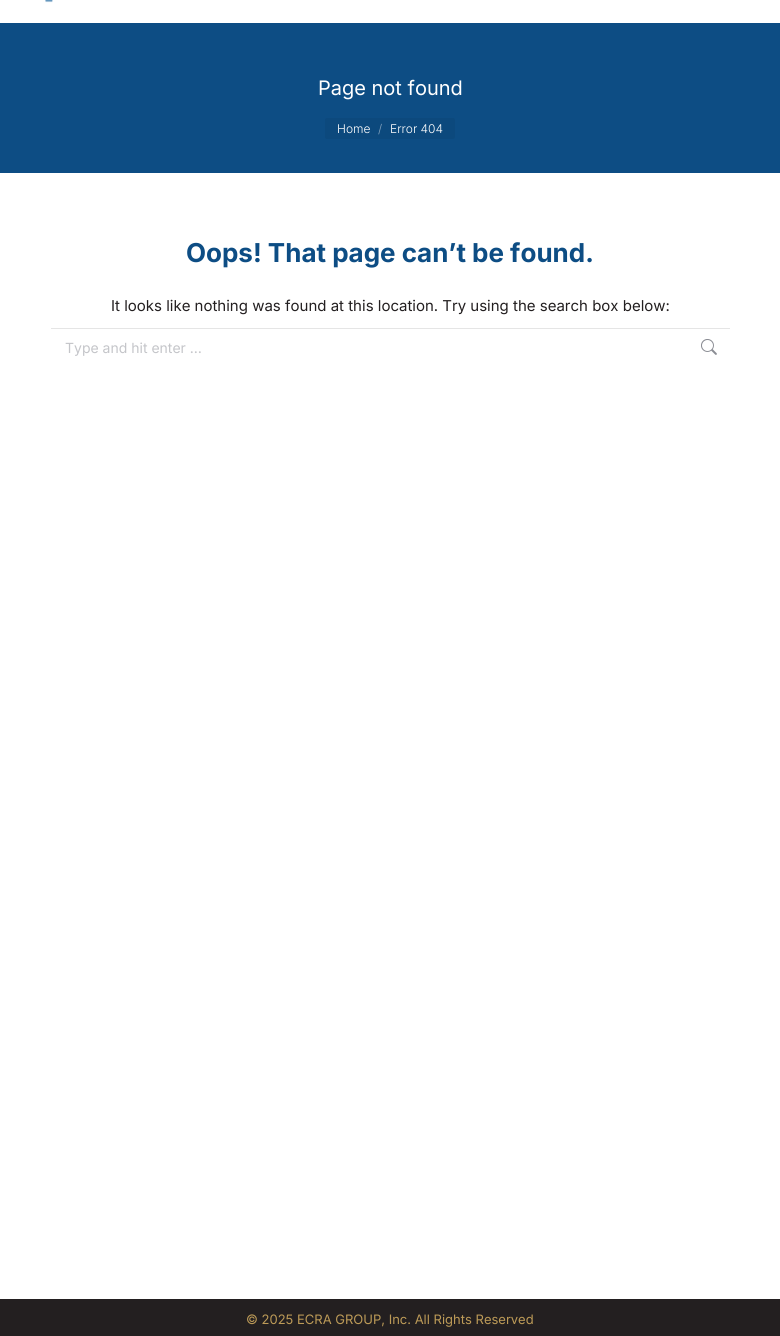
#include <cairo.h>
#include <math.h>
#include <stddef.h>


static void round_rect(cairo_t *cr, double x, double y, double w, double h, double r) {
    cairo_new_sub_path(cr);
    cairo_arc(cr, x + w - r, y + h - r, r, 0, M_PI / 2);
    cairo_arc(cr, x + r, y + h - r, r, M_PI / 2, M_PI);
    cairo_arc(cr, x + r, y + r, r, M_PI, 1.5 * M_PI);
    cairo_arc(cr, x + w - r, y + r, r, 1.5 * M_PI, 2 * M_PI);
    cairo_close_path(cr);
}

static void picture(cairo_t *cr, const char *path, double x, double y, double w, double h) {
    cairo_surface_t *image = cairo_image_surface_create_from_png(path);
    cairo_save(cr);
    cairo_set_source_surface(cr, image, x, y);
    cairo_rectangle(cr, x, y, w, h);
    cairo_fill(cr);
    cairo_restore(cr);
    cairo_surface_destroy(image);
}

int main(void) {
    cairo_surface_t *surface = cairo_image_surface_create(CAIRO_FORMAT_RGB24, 780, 1336);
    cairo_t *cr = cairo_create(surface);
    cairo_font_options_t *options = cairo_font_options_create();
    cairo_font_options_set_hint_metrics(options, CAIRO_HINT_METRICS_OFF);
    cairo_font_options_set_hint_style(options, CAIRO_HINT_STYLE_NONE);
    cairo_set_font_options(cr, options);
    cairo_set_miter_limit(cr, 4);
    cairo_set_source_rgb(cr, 1, 1, 1);
    cairo_paint(cr);
    picture(cr, "img1.png", 45, 0, 8, 3);
    cairo_set_source_rgb(cr, 0.051, 0.302, 0.518);
    cairo_rectangle(cr, 0, 23, 780, 150);
    cairo_fill(cr);
    cairo_select_font_face(cr, "Inter", CAIRO_FONT_SLANT_NORMAL, CAIRO_FONT_WEIGHT_NORMAL);
    cairo_set_font_size(cr, 20);
    cairo_set_source_rgb(cr, 1, 1, 1);
    cairo_move_to(cr, 318, 95);
    cairo_show_text(cr, "Page not found");
    cairo_set_source_rgb(cr, 0.047, 0.286, 0.49);
    round_rect(cr, 325, 118, 130, 21, 2);
    cairo_fill(cr);
    cairo_select_font_face(cr, "Inter Light", CAIRO_FONT_SLANT_NORMAL, CAIRO_FONT_WEIGHT_NORMAL);
    cairo_set_font_size(cr, 12);
    cairo_set_source_rgb(cr, 1, 1, 1);
    cairo_move_to(cr, 337, 133);
    cairo_show_text(cr, "Home");
    cairo_set_source_rgb(cr, 0.525, 0.643, 0.745);
    cairo_move_to(cr, 378, 133);
    cairo_show_text(cr, "/");
    cairo_set_source_rgb(cr, 1, 1, 1);
    cairo_move_to(cr, 390, 133);
    cairo_show_text(cr, "Error 404");
    cairo_select_font_face(cr, "Inter", CAIRO_FONT_SLANT_NORMAL, CAIRO_FONT_WEIGHT_BOLD);
    cairo_set_font_size(cr, 26);
    cairo_set_source_rgb(cr, 0.051, 0.302, 0.518);
    cairo_move_to(cr, 186, 262);
    cairo_show_text(cr, "Oops! That page can’t be found.");
    cairo_select_font_face(cr, "Inter", CAIRO_FONT_SLANT_NORMAL, CAIRO_FONT_WEIGHT_NORMAL);
    cairo_set_font_size(cr, 15);
    cairo_set_source_rgb(cr, 0.137, 0.122, 0.125);
    cairo_move_to(cr, 111, 311);
    cairo_show_text(cr, "It looks like nothing was found at this location. Try using the search box below:");
    cairo_set_source_rgb(cr, 0.898, 0.898, 0.898);
    cairo_rectangle(cr, 51, 328, 679, 1);
    cairo_fill(cr);
    cairo_set_font_size(cr, 14);
    cairo_set_source_rgb(cr, 0.769, 0.773, 0.788);
    cairo_move_to(cr, 65, 353);
    cairo_show_text(cr, "Type and hit enter …");
    picture(cr, "img2.png", 701, 339, 16, 16);
    cairo_set_source_rgb(cr, 0.137, 0.122, 0.125);
    cairo_rectangle(cr, 0, 1299, 780, 37);
    cairo_fill(cr);
    cairo_set_font_size(cr, 13);
    cairo_set_source_rgb(cr, 0.737, 0.604, 0.341);
    cairo_move_to(cr, 246, 1324);
    cairo_show_text(cr, "© 2025 ECRA GROUP, Inc. All Rights Reserved");
    cairo_surface_write_to_png(surface, "page.png");
    cairo_font_options_destroy(options);
    cairo_destroy(cr);
    cairo_surface_destroy(surface);
    return 0;
}
